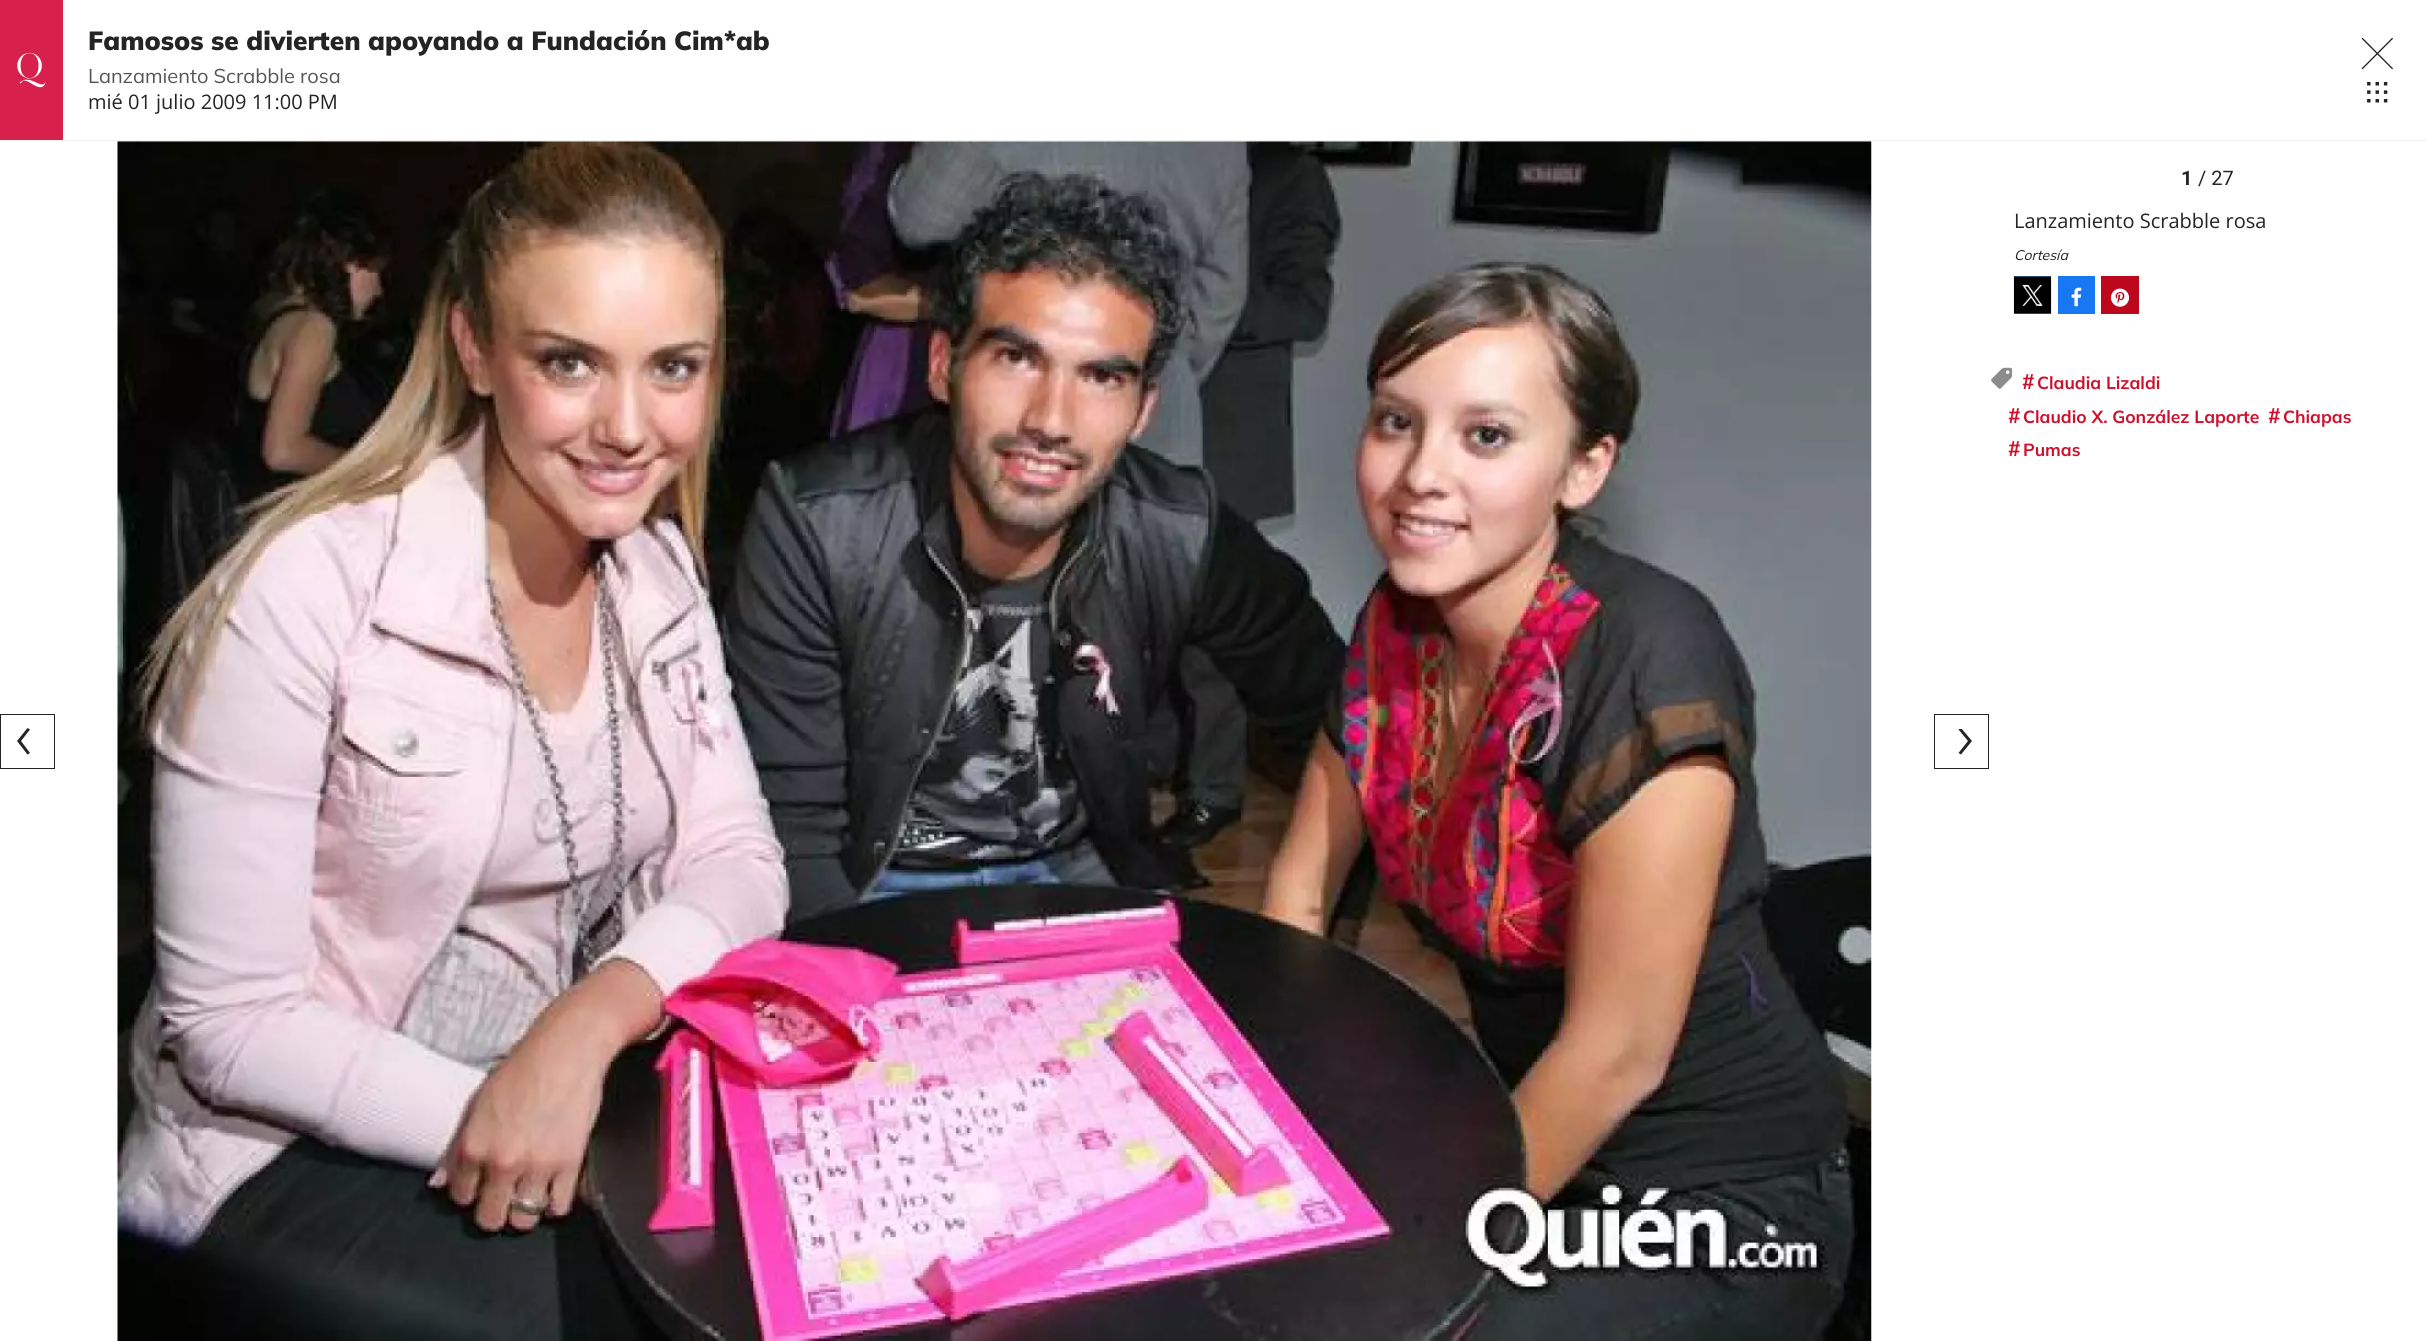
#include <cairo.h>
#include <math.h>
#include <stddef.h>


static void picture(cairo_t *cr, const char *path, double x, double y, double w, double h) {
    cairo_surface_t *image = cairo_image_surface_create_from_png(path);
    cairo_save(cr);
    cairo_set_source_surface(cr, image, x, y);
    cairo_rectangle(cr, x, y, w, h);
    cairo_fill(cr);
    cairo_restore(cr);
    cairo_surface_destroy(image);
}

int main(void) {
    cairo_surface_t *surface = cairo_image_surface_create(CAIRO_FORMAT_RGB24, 2426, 1341);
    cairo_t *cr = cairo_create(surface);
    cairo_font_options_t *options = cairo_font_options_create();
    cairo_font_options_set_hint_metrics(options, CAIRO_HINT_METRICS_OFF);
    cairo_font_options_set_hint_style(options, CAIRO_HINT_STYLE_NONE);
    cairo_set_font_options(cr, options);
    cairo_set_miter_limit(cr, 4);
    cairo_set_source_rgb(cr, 1, 1, 1);
    cairo_paint(cr);
    cairo_set_source_rgb(cr, 0.937, 0.937, 0.937);
    cairo_rectangle(cr, 0, 140, 2426, 1);
    cairo_fill(cr);
    cairo_set_source_rgb(cr, 0.843, 0.125, 0.298);
    cairo_rectangle(cr, 0, 0, 63, 140);
    cairo_fill(cr);
    picture(cr, "img1.png", 17, 52, 29, 36);
    cairo_select_font_face(cr, "Mulish Black", CAIRO_FONT_SLANT_NORMAL, CAIRO_FONT_WEIGHT_NORMAL);
    cairo_set_font_size(cr, 26.25);
    cairo_set_source_rgb(cr, 0.141, 0.141, 0.141);
    cairo_move_to(cr, 88, 50);
    cairo_show_text(cr, "Famosos se divierten apoyando a Fundación Cim*ab");
    cairo_select_font_face(cr, "Mulish", CAIRO_FONT_SLANT_NORMAL, CAIRO_FONT_WEIGHT_NORMAL);
    cairo_set_font_size(cr, 20);
    cairo_set_source_rgb(cr, 0.333, 0.333, 0.333);
    cairo_move_to(cr, 88, 83);
    cairo_show_text(cr, "Lanzamiento Scrabble rosa");
    cairo_select_font_face(cr, "Open Sans", CAIRO_FONT_SLANT_NORMAL, CAIRO_FONT_WEIGHT_NORMAL);
    cairo_set_source_rgb(cr, 0.141, 0.141, 0.141);
    cairo_move_to(cr, 88, 109);
    cairo_show_text(cr, "mié 01 julio 2009 11:00 PM");
    picture(cr, "img2.png", 2361, 37, 32, 33);
    picture(cr, "img3.png", 2367, 82, 21, 21);
    cairo_rectangle(cr, 0.5, 714.5, 54, 54);
    cairo_set_line_width(cr, 1);
    cairo_stroke(cr);
    cairo_new_path(cr);
    cairo_move_to(cr, 17, 741);
    cairo_line_to(cr, 27.5, 754.5);
    cairo_line_to(cr, 30, 753);
    cairo_line_to(cr, 21, 741);
    cairo_line_to(cr, 30, 729.5);
    cairo_line_to(cr, 27.5, 728);
    cairo_close_path(cr);
    cairo_fill(cr);
    picture(cr, "img4.png", 117, 141, 1755, 1200);
    cairo_rectangle(cr, 1934.5, 714.5, 54, 54);
    cairo_stroke(cr);
    cairo_save(cr);
    cairo_rectangle(cr, 1949, 729, 26, 26);
    cairo_clip(cr);
    cairo_new_path(cr);
    cairo_move_to(cr, 1972, 741);
    cairo_line_to(cr, 1961, 728);
    cairo_line_to(cr, 1958.5, 729.5);
    cairo_line_to(cr, 1968, 741);
    cairo_line_to(cr, 1958.5, 753);
    cairo_line_to(cr, 1961, 754.5);
    cairo_close_path(cr);
    cairo_fill(cr);
    cairo_restore(cr);
    cairo_select_font_face(cr, "Roboto", CAIRO_FONT_SLANT_NORMAL, CAIRO_FONT_WEIGHT_BOLD);
    cairo_move_to(cr, 2181, 185);
    cairo_show_text(cr, "1");
    cairo_select_font_face(cr, "Roboto", CAIRO_FONT_SLANT_NORMAL, CAIRO_FONT_WEIGHT_NORMAL);
    cairo_move_to(cr, 2198, 185);
    cairo_show_text(cr, "/ 27");
    cairo_select_font_face(cr, "Open Sans", CAIRO_FONT_SLANT_NORMAL, CAIRO_FONT_WEIGHT_NORMAL);
    cairo_move_to(cr, 2014, 228);
    cairo_show_text(cr, "Lanzamiento Scrabble rosa");
    cairo_select_font_face(cr, "Mulish", CAIRO_FONT_SLANT_ITALIC, CAIRO_FONT_WEIGHT_NORMAL);
    cairo_set_font_size(cr, 14);
    cairo_move_to(cr, 2014, 260);
    cairo_show_text(cr, "Cortesía");
    cairo_set_source_rgb(cr, 0.333, 0.675, 0.933);
    cairo_rectangle(cr, 2014, 276, 37, 38);
    cairo_fill(cr);
    picture(cr, "img5.png", 2013, 276, 39, 38);
    cairo_set_source_rgb(cr, 0.094, 0.467, 0.949);
    cairo_rectangle(cr, 2058, 276, 37, 38);
    cairo_fill(cr);
    picture(cr, "img6.png", 2071, 287, 11, 20);
    cairo_set_source_rgb(cr, 0.741, 0.031, 0.11);
    cairo_rectangle(cr, 2101, 276, 38, 38);
    cairo_fill(cr);
    picture(cr, "img7.png", 2110, 288, 20, 19);
    picture(cr, "img8.png", 1991, 367, 22, 22);
    cairo_select_font_face(cr, "Mulish", CAIRO_FONT_SLANT_NORMAL, CAIRO_FONT_WEIGHT_BOLD);
    cairo_set_font_size(cr, 21);
    cairo_set_source_rgb(cr, 0.812, 0.063, 0.176);
    cairo_move_to(cr, 2022, 389);
    cairo_show_text(cr, "#");
    cairo_set_font_size(cr, 17.5);
    cairo_move_to(cr, 2037, 389);
    cairo_show_text(cr, "Claudia Lizaldi");
    cairo_set_font_size(cr, 21);
    cairo_move_to(cr, 2008, 423);
    cairo_show_text(cr, "#");
    cairo_set_font_size(cr, 17.5);
    cairo_move_to(cr, 2023, 423);
    cairo_show_text(cr, "Claudio X. González Laporte");
    cairo_set_font_size(cr, 21);
    cairo_move_to(cr, 2268, 423);
    cairo_show_text(cr, "#");
    cairo_set_font_size(cr, 17.5);
    cairo_move_to(cr, 2283, 423);
    cairo_show_text(cr, "Chiapas");
    cairo_set_font_size(cr, 21);
    cairo_move_to(cr, 2008, 456);
    cairo_show_text(cr, "#");
    cairo_set_font_size(cr, 17.5);
    cairo_move_to(cr, 2023, 456);
    cairo_show_text(cr, "Pumas");
    cairo_surface_write_to_png(surface, "page.png");
    cairo_font_options_destroy(options);
    cairo_destroy(cr);
    cairo_surface_destroy(surface);
    return 0;
}
